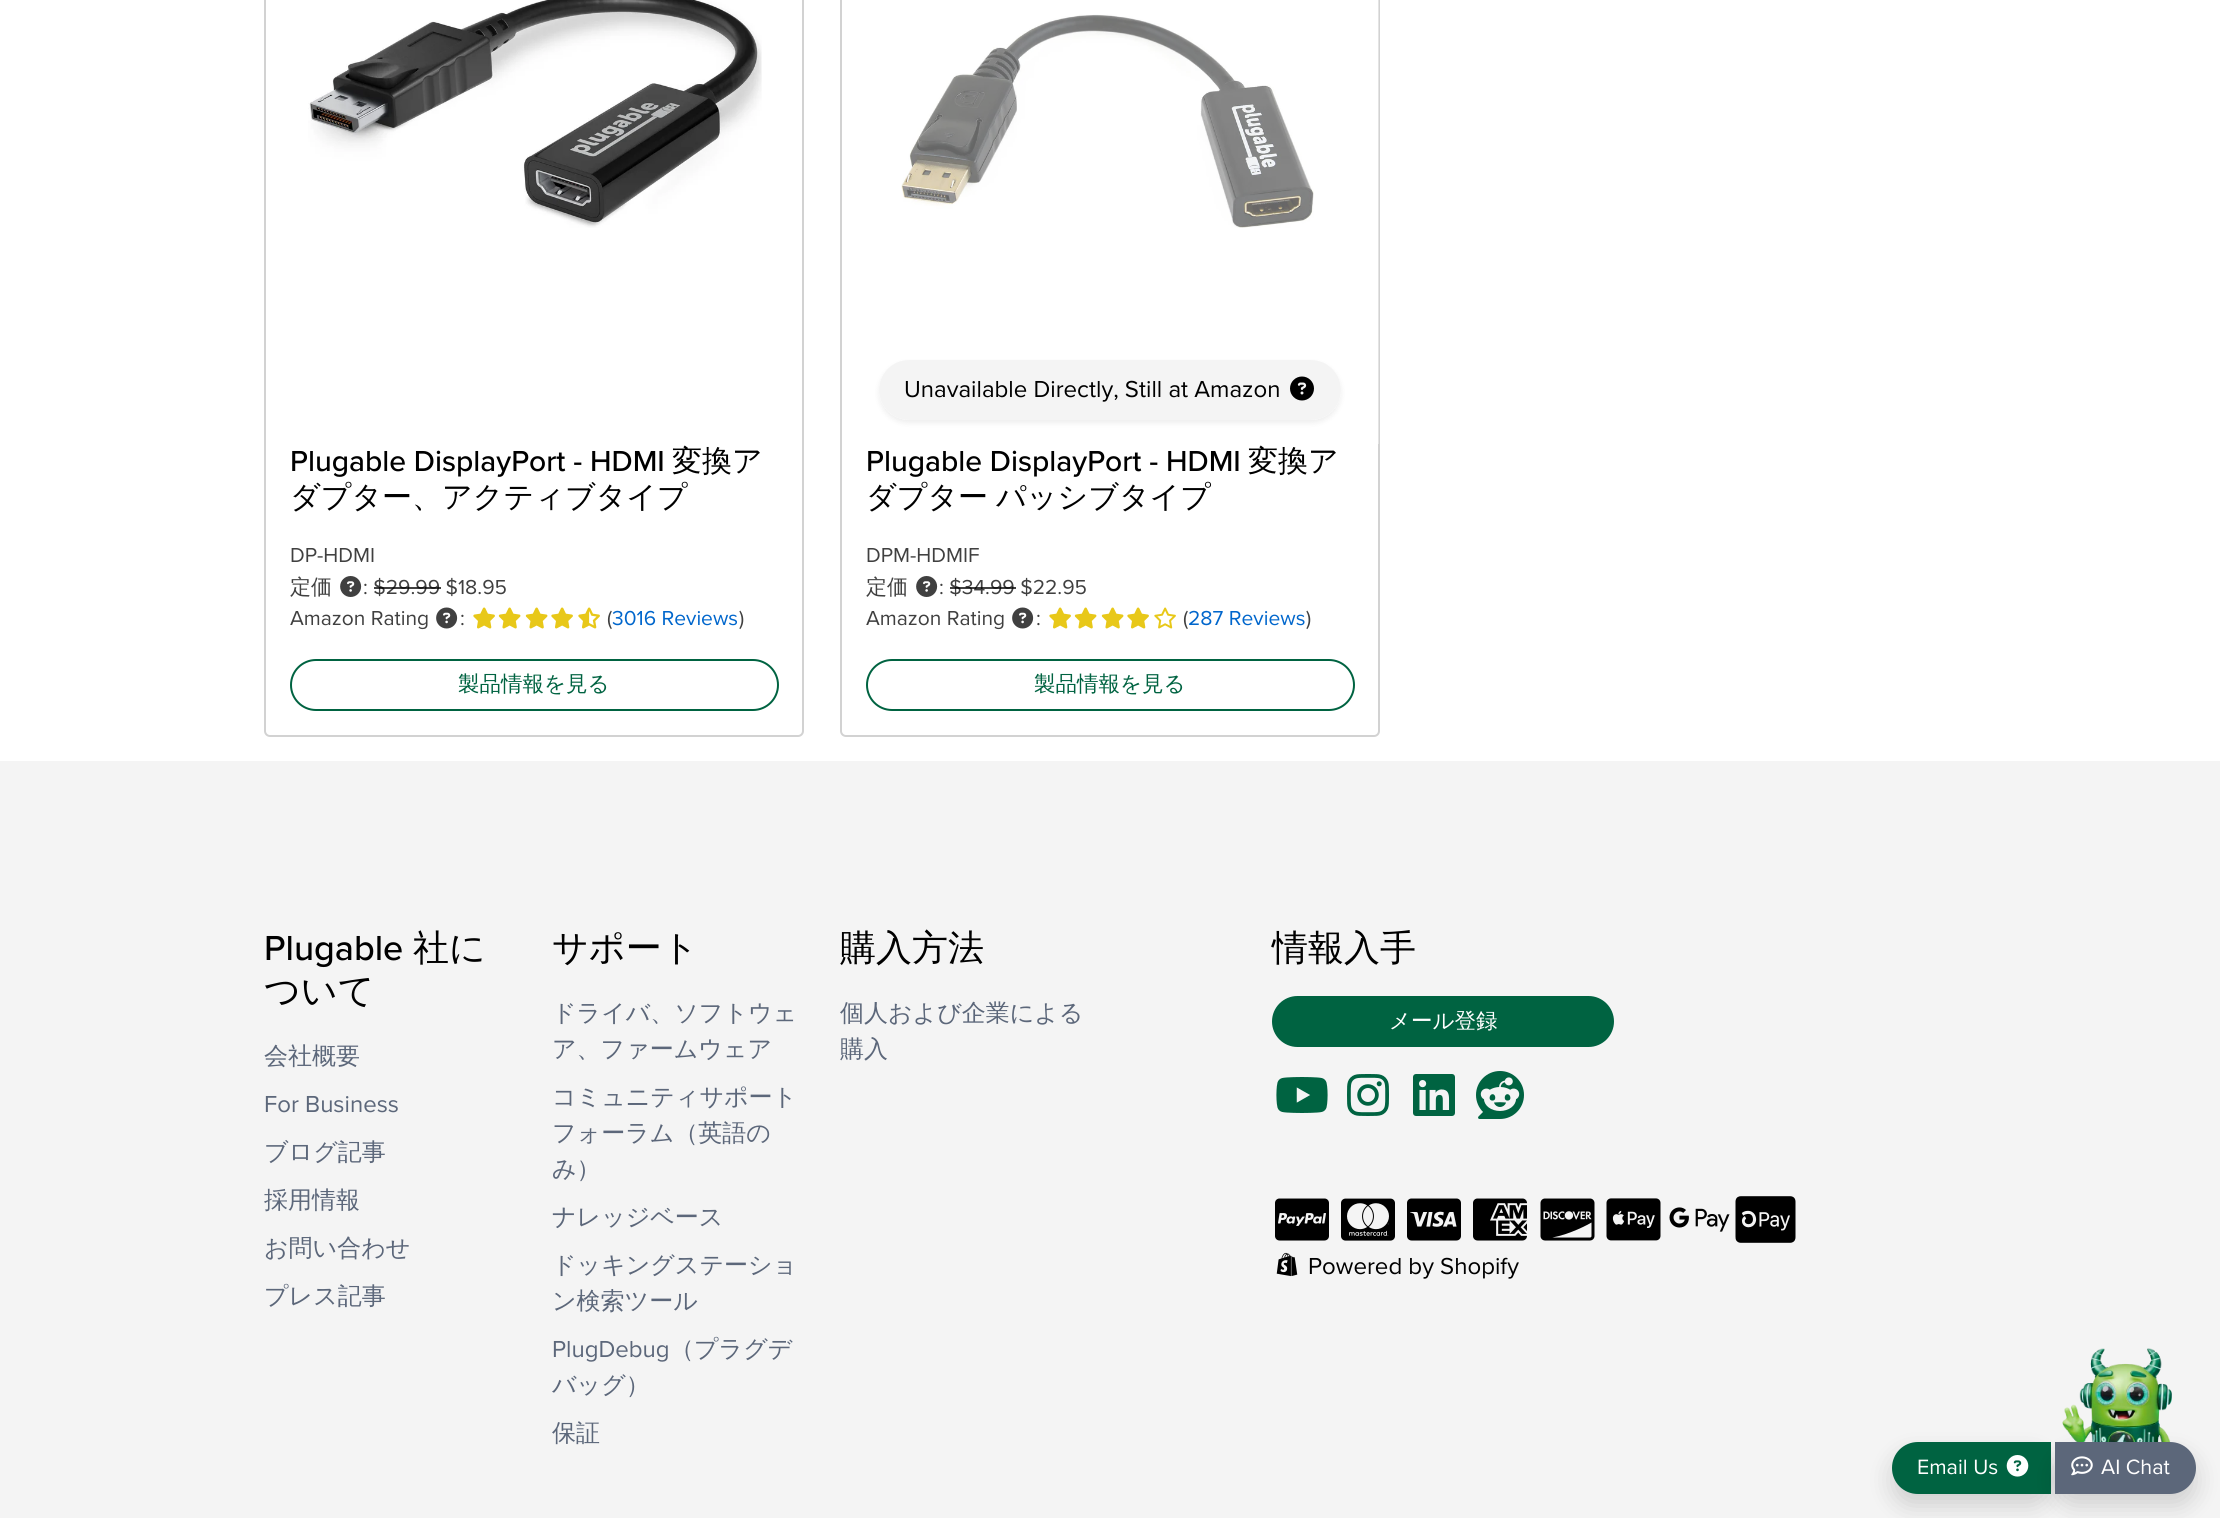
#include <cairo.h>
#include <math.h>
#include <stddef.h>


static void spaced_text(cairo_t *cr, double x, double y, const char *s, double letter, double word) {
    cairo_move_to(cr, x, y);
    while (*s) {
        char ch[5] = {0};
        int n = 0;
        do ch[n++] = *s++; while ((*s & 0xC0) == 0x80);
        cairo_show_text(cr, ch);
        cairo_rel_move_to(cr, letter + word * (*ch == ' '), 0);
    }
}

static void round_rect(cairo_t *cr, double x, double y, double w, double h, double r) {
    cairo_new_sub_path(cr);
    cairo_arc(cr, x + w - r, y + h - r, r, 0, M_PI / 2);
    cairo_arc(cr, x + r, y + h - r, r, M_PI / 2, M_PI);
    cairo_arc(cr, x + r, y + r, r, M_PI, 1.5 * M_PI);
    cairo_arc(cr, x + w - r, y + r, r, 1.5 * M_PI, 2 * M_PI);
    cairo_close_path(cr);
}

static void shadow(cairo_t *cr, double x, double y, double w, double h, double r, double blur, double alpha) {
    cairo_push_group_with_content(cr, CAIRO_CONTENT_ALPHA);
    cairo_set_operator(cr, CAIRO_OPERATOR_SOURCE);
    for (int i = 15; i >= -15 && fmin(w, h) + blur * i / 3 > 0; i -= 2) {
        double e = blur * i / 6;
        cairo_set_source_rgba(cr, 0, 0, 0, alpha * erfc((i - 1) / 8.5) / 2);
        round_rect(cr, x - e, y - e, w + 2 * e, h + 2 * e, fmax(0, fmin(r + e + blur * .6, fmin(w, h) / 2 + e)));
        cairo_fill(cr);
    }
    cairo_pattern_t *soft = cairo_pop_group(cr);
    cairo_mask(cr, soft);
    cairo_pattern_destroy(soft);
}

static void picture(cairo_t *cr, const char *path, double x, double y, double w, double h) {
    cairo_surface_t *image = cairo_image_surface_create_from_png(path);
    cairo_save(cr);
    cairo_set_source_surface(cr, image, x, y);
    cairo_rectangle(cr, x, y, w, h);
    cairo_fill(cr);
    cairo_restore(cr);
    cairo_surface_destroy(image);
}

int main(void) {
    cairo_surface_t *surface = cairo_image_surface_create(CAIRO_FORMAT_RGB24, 2220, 1518);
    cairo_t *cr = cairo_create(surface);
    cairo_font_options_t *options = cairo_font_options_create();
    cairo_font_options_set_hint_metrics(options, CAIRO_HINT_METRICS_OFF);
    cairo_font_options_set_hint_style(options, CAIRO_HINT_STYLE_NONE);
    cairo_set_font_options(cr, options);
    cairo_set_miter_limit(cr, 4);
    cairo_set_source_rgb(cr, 1, 1, 1);
    cairo_paint(cr);
    round_rect(cr, 265, -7, 538, 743, 5);
    cairo_set_source_rgb(cr, 0.824, 0.824, 0.824);
    cairo_stroke(cr);
    picture(cr, "img1.png", 308, 0, 454, 228);
    cairo_select_font_face(cr, "Proxima Nova Medium", CAIRO_FONT_SLANT_NORMAL, CAIRO_FONT_WEIGHT_NORMAL);
    cairo_set_font_size(cr, 30);
    cairo_set_source_rgb(cr, 0, 0, 0);
    cairo_move_to(cr, 290, 471);
    cairo_show_text(cr, "Plugable DisplayPort - HDMI");
    cairo_select_font_face(cr, "WenQuanYi Zen Hei Medium", CAIRO_FONT_SLANT_NORMAL, CAIRO_FONT_WEIGHT_NORMAL);
    cairo_move_to(cr, 672, 471);
    cairo_show_text(cr, "変換ア");
    cairo_move_to(cr, 290, 507);
    cairo_show_text(cr, "ダプター、アクティブタイプ");
    cairo_select_font_face(cr, "Proxima Nova", CAIRO_FONT_SLANT_NORMAL, CAIRO_FONT_WEIGHT_NORMAL);
    cairo_set_font_size(cr, 21);
    cairo_set_source_rgb(cr, 0.251, 0.251, 0.251);
    cairo_move_to(cr, 290, 562);
    cairo_show_text(cr, "DP-HDMI");
    cairo_select_font_face(cr, "WenQuanYi Zen Hei Medium", CAIRO_FONT_SLANT_NORMAL, CAIRO_FONT_WEIGHT_NORMAL);
    cairo_move_to(cr, 290, 594);
    cairo_show_text(cr, "定価");
    picture(cr, "img2.png", 340, 576, 22, 21);
    cairo_select_font_face(cr, "Proxima Nova", CAIRO_FONT_SLANT_NORMAL, CAIRO_FONT_WEIGHT_NORMAL);
    cairo_move_to(cr, 363, 594);
    cairo_show_text(cr, ": $29.99 $18.95");
    cairo_set_source_rgba(cr, 0, 0, 0, 0.75);
    cairo_rectangle(cr, 374, 587, 67, 2);
    cairo_fill(cr);
    cairo_set_source_rgb(cr, 0.251, 0.251, 0.251);
    cairo_move_to(cr, 290, 625);
    cairo_show_text(cr, "Amazon Rating");
    picture(cr, "img3.png", 436, 607, 22, 22);
    cairo_move_to(cr, 460, 625);
    cairo_show_text(cr, ":");
    picture(cr, "img4.png", 473, 607, 22, 22);
    picture(cr, "img5.png", 498, 607, 23, 22);
    picture(cr, "img5.png", 525, 607, 23, 22);
    picture(cr, "img4.png", 551, 607, 22, 22);
    picture(cr, "img6.png", 578, 607, 22, 22);
    cairo_move_to(cr, 607, 625);
    cairo_show_text(cr, "(");
    cairo_set_source_rgb(cr, 0, 0.4, 0.8);
    cairo_move_to(cr, 612, 625);
    cairo_show_text(cr, "3016 Reviews");
    cairo_set_source_rgb(cr, 0.251, 0.251, 0.251);
    cairo_move_to(cr, 739, 625);
    cairo_show_text(cr, ")");
    round_rect(cr, 291, 660, 487, 50, 25);
    cairo_set_source_rgb(cr, 0, 0.388, 0.255);
    cairo_stroke(cr);
    cairo_select_font_face(cr, "WenQuanYi Zen Hei Medium", CAIRO_FONT_SLANT_NORMAL, CAIRO_FONT_WEIGHT_NORMAL);
    cairo_set_font_size(cr, 21.5);
    cairo_move_to(cr, 458, 691);
    cairo_show_text(cr, "製品情報を見る");
    round_rect(cr, 841, -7, 538, 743, 5);
    cairo_set_source_rgb(cr, 0.824, 0.824, 0.824);
    cairo_stroke(cr);
    picture(cr, "img7.png", 901, 14, 413, 214);
    cairo_set_source_rgba(cr, 1, 1, 1, 0.4);
    cairo_rectangle(cr, 901, 0, 478, 444);
    cairo_fill(cr);
    cairo_save(cr);
    cairo_set_fill_rule(cr, CAIRO_FILL_RULE_EVEN_ODD);
    cairo_new_path(cr);
    cairo_move_to(cr, 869, 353);
    cairo_line_to(cr, 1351, 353);
    cairo_line_to(cr, 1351, 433);
    cairo_line_to(cr, 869, 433);
    cairo_close_path(cr);
    cairo_move_to(cr, 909, 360);
    cairo_line_to(cr, 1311, 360);
    cairo_curve_to(cr, 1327.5, 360, 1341, 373.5, 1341, 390);
    cairo_curve_to(cr, 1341, 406.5, 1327.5, 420, 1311, 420);
    cairo_line_to(cr, 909, 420);
    cairo_curve_to(cr, 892.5, 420, 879, 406.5, 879, 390);
    cairo_curve_to(cr, 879, 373.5, 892.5, 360, 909, 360);
    cairo_close_path(cr);
    cairo_clip(cr);
    cairo_set_source_rgb(cr, 0, 0, 0);
    shadow(cr, 879, 363, 462, 60, 30, 3, 0.07);
    cairo_restore(cr);
    cairo_set_source_rgba(cr, 0.957, 0.957, 0.957, 0.93);
    round_rect(cr, 879, 360, 462, 60, 30);
    cairo_fill(cr);
    cairo_select_font_face(cr, "Proxima Nova", CAIRO_FONT_SLANT_NORMAL, CAIRO_FONT_WEIGHT_NORMAL);
    cairo_set_font_size(cr, 24);
    cairo_set_source_rgb(cr, 0, 0, 0);
    cairo_move_to(cr, 904, 397);
    cairo_show_text(cr, "Unavailable Directly, Still at Amazon");
    picture(cr, "img8.png", 1290, 376, 24, 25);
    cairo_select_font_face(cr, "Proxima Nova Medium", CAIRO_FONT_SLANT_NORMAL, CAIRO_FONT_WEIGHT_NORMAL);
    cairo_set_font_size(cr, 30);
    cairo_move_to(cr, 866, 471);
    cairo_show_text(cr, "Plugable DisplayPort - HDMI");
    cairo_select_font_face(cr, "WenQuanYi Zen Hei Medium", CAIRO_FONT_SLANT_NORMAL, CAIRO_FONT_WEIGHT_NORMAL);
    cairo_move_to(cr, 1248, 471);
    cairo_show_text(cr, "変換ア");
    spaced_text(cr, 866, 507, "ダプター パッシブタイプ", 0, -1);
    cairo_select_font_face(cr, "Proxima Nova", CAIRO_FONT_SLANT_NORMAL, CAIRO_FONT_WEIGHT_NORMAL);
    cairo_set_font_size(cr, 21);
    cairo_set_source_rgb(cr, 0.251, 0.251, 0.251);
    cairo_move_to(cr, 866, 562);
    cairo_show_text(cr, "DPM-HDMIF");
    cairo_select_font_face(cr, "WenQuanYi Zen Hei Medium", CAIRO_FONT_SLANT_NORMAL, CAIRO_FONT_WEIGHT_NORMAL);
    cairo_move_to(cr, 866, 594);
    cairo_show_text(cr, "定価");
    picture(cr, "img2.png", 916, 576, 22, 21);
    cairo_select_font_face(cr, "Proxima Nova", CAIRO_FONT_SLANT_NORMAL, CAIRO_FONT_WEIGHT_NORMAL);
    cairo_move_to(cr, 939, 594);
    cairo_show_text(cr, ": $34.99 $22.95");
    cairo_set_source_rgba(cr, 0, 0, 0, 0.75);
    cairo_rectangle(cr, 950, 587, 66, 2);
    cairo_fill(cr);
    cairo_set_source_rgb(cr, 0.251, 0.251, 0.251);
    cairo_move_to(cr, 866, 625);
    cairo_show_text(cr, "Amazon Rating");
    picture(cr, "img3.png", 1012, 607, 22, 22);
    cairo_move_to(cr, 1036, 625);
    cairo_show_text(cr, ":");
    picture(cr, "img4.png", 1049, 607, 22, 22);
    picture(cr, "img5.png", 1074, 607, 23, 22);
    picture(cr, "img5.png", 1101, 607, 23, 22);
    picture(cr, "img4.png", 1127, 607, 22, 22);
    picture(cr, "img9.png", 1154, 607, 22, 22);
    cairo_move_to(cr, 1183, 625);
    cairo_show_text(cr, "(");
    cairo_set_source_rgb(cr, 0, 0.4, 0.8);
    cairo_move_to(cr, 1188, 625);
    cairo_show_text(cr, "287 Reviews");
    cairo_set_source_rgb(cr, 0.251, 0.251, 0.251);
    cairo_move_to(cr, 1306, 625);
    cairo_show_text(cr, ")");
    round_rect(cr, 867, 660, 487, 50, 25);
    cairo_set_source_rgb(cr, 0, 0.388, 0.255);
    cairo_stroke(cr);
    cairo_select_font_face(cr, "WenQuanYi Zen Hei Medium", CAIRO_FONT_SLANT_NORMAL, CAIRO_FONT_WEIGHT_NORMAL);
    cairo_set_font_size(cr, 21.5);
    cairo_move_to(cr, 1034, 691);
    cairo_show_text(cr, "製品情報を見る");
    cairo_set_source_rgb(cr, 0.957, 0.957, 0.957);
    cairo_rectangle(cr, 0, 761, 2220, 757);
    cairo_fill(cr);
    cairo_select_font_face(cr, "Proxima Nova Medium", CAIRO_FONT_SLANT_NORMAL, CAIRO_FONT_WEIGHT_NORMAL);
    cairo_set_font_size(cr, 36);
    cairo_set_source_rgb(cr, 0, 0, 0);
    cairo_move_to(cr, 264, 960);
    cairo_show_text(cr, "Plugable");
    cairo_select_font_face(cr, "WenQuanYi Zen Hei Medium", CAIRO_FONT_SLANT_NORMAL, CAIRO_FONT_WEIGHT_NORMAL);
    cairo_move_to(cr, 413, 960);
    cairo_show_text(cr, "社に");
    cairo_move_to(cr, 264, 1003);
    cairo_show_text(cr, "ついて");
    cairo_set_font_size(cr, 24);
    cairo_set_source_rgb(cr, 0.361, 0.404, 0.478);
    cairo_move_to(cr, 264, 1064);
    cairo_show_text(cr, "会社概要");
    cairo_select_font_face(cr, "Proxima Nova", CAIRO_FONT_SLANT_NORMAL, CAIRO_FONT_WEIGHT_NORMAL);
    cairo_move_to(cr, 264, 1112);
    cairo_show_text(cr, "For Business");
    cairo_select_font_face(cr, "WenQuanYi Zen Hei Medium", CAIRO_FONT_SLANT_NORMAL, CAIRO_FONT_WEIGHT_NORMAL);
    cairo_move_to(cr, 264, 1160);
    cairo_show_text(cr, "ブログ記事");
    cairo_move_to(cr, 264, 1208);
    cairo_show_text(cr, "採用情報");
    cairo_move_to(cr, 264, 1256);
    cairo_show_text(cr, "お問い合わせ");
    cairo_move_to(cr, 264, 1304);
    cairo_show_text(cr, "プレス記事");
    cairo_set_font_size(cr, 36);
    cairo_set_source_rgb(cr, 0, 0, 0);
    cairo_move_to(cr, 552, 960);
    cairo_show_text(cr, "サポート");
    cairo_set_font_size(cr, 24);
    cairo_set_source_rgb(cr, 0.361, 0.404, 0.478);
    cairo_move_to(cr, 552, 1021);
    cairo_show_text(cr, "ドライバ、ソフトウェ");
    cairo_move_to(cr, 552, 1057);
    cairo_show_text(cr, "ア、ファームウェア");
    cairo_move_to(cr, 552, 1105);
    cairo_show_text(cr, "コミュニティサポート");
    cairo_move_to(cr, 552, 1141);
    cairo_show_text(cr, "フォーラム（英語の");
    cairo_move_to(cr, 552, 1177);
    cairo_show_text(cr, "み）");
    cairo_move_to(cr, 552, 1225);
    cairo_show_text(cr, "ナレッジベース");
    cairo_move_to(cr, 552, 1273);
    cairo_show_text(cr, "ドッキングステーショ");
    cairo_move_to(cr, 552, 1309);
    cairo_show_text(cr, "ン検索ツール");
    cairo_select_font_face(cr, "Proxima Nova", CAIRO_FONT_SLANT_NORMAL, CAIRO_FONT_WEIGHT_NORMAL);
    cairo_move_to(cr, 552, 1357);
    cairo_show_text(cr, "PlugDebug");
    cairo_select_font_face(cr, "WenQuanYi Zen Hei Medium", CAIRO_FONT_SLANT_NORMAL, CAIRO_FONT_WEIGHT_NORMAL);
    cairo_move_to(cr, 670, 1357);
    cairo_show_text(cr, "（プラグデ");
    cairo_move_to(cr, 552, 1393);
    cairo_show_text(cr, "バッグ）");
    cairo_move_to(cr, 552, 1441);
    cairo_show_text(cr, "保証");
    cairo_set_font_size(cr, 36);
    cairo_set_source_rgb(cr, 0, 0, 0);
    cairo_move_to(cr, 840, 960);
    cairo_show_text(cr, "購入方法");
    cairo_set_font_size(cr, 24);
    cairo_set_source_rgb(cr, 0.361, 0.404, 0.478);
    cairo_move_to(cr, 840, 1021);
    cairo_show_text(cr, "個人および企業による");
    cairo_move_to(cr, 840, 1057);
    cairo_show_text(cr, "購入");
    cairo_set_font_size(cr, 36);
    cairo_set_source_rgb(cr, 0, 0, 0);
    cairo_move_to(cr, 1272, 960);
    cairo_show_text(cr, "情報入手");
    cairo_set_source_rgb(cr, 0, 0.388, 0.255);
    round_rect(cr, 1273, 997, 340, 49, 24.5);
    cairo_fill_preserve(cr);
    cairo_stroke(cr);
    cairo_set_font_size(cr, 21.5);
    cairo_set_source_rgb(cr, 1, 1, 1);
    cairo_move_to(cr, 1389, 1028);
    cairo_show_text(cr, "メール登録");
    picture(cr, "img10.png", 1276, 1077, 52, 36);
    picture(cr, "img11.png", 1347, 1074, 42, 42);
    picture(cr, "img12.png", 1413, 1074, 42, 42);
    picture(cr, "img13.png", 1476, 1071, 48, 48);
    picture(cr, "img14.png", 1275, 1198, 54, 43);
    picture(cr, "img15.png", 1341, 1198, 54, 43);
    picture(cr, "img16.png", 1407, 1198, 54, 43);
    picture(cr, "img17.png", 1473, 1198, 54, 43);
    picture(cr, "img18.png", 1540, 1198, 55, 43);
    picture(cr, "img19.png", 1606, 1198, 55, 43);
    picture(cr, "img20.png", 1669, 1207, 61, 25);
    picture(cr, "img21.png", 1735, 1196, 61, 47);
    picture(cr, "img22.png", 1276, 1252, 22, 25);
    cairo_select_font_face(cr, "Proxima Nova", CAIRO_FONT_SLANT_NORMAL, CAIRO_FONT_WEIGHT_NORMAL);
    cairo_set_font_size(cr, 24);
    cairo_set_source_rgb(cr, 0, 0, 0);
    cairo_move_to(cr, 1308, 1274);
    cairo_show_text(cr, "Powered by Shopify");
    picture(cr, "img23.png", 2062, 1348, 110, 95);
    cairo_set_source_rgb(cr, 0, 0, 0);
    shadow(cr, 1892, 1454, 159, 52, 26, 12, 0.15);
    cairo_set_source_rgb(cr, 0, 0.388, 0.255);
    cairo_new_path(cr);
    cairo_move_to(cr, 1918, 1443);
    cairo_line_to(cr, 2050, 1443);
    cairo_line_to(cr, 2050, 1493);
    cairo_line_to(cr, 1918, 1493);
    cairo_curve_to(cr, 1904, 1493, 1893, 1482, 1893, 1468);
    cairo_curve_to(cr, 1893, 1454, 1904, 1443, 1918, 1443);
    cairo_close_path(cr);
    cairo_fill_preserve(cr);
    cairo_stroke(cr);
    cairo_set_font_size(cr, 21.5);
    cairo_set_source_rgb(cr, 1, 1, 1);
    cairo_move_to(cr, 1917, 1474);
    cairo_show_text(cr, "Email Us");
    picture(cr, "img24.png", 2006, 1455, 23, 22);
    cairo_set_source_rgb(cr, 0, 0, 0);
    shadow(cr, 2055, 1454, 141, 52, 26, 12, 0.15);
    cairo_set_source_rgb(cr, 0.361, 0.404, 0.478);
    cairo_new_path(cr);
    cairo_move_to(cr, 2056, 1443);
    cairo_line_to(cr, 2170, 1443);
    cairo_curve_to(cr, 2184, 1443, 2195, 1454, 2195, 1468);
    cairo_curve_to(cr, 2195, 1482, 2184, 1493, 2170, 1493);
    cairo_line_to(cr, 2056, 1493);
    cairo_close_path(cr);
    cairo_fill_preserve(cr);
    cairo_stroke(cr);
    picture(cr, "img25.png", 2071, 1456, 22, 20);
    cairo_set_source_rgb(cr, 1, 1, 1);
    cairo_move_to(cr, 2101, 1474);
    cairo_show_text(cr, "AI Chat");
    cairo_surface_write_to_png(surface, "page.png");
    cairo_font_options_destroy(options);
    cairo_destroy(cr);
    cairo_surface_destroy(surface);
    return 0;
}
